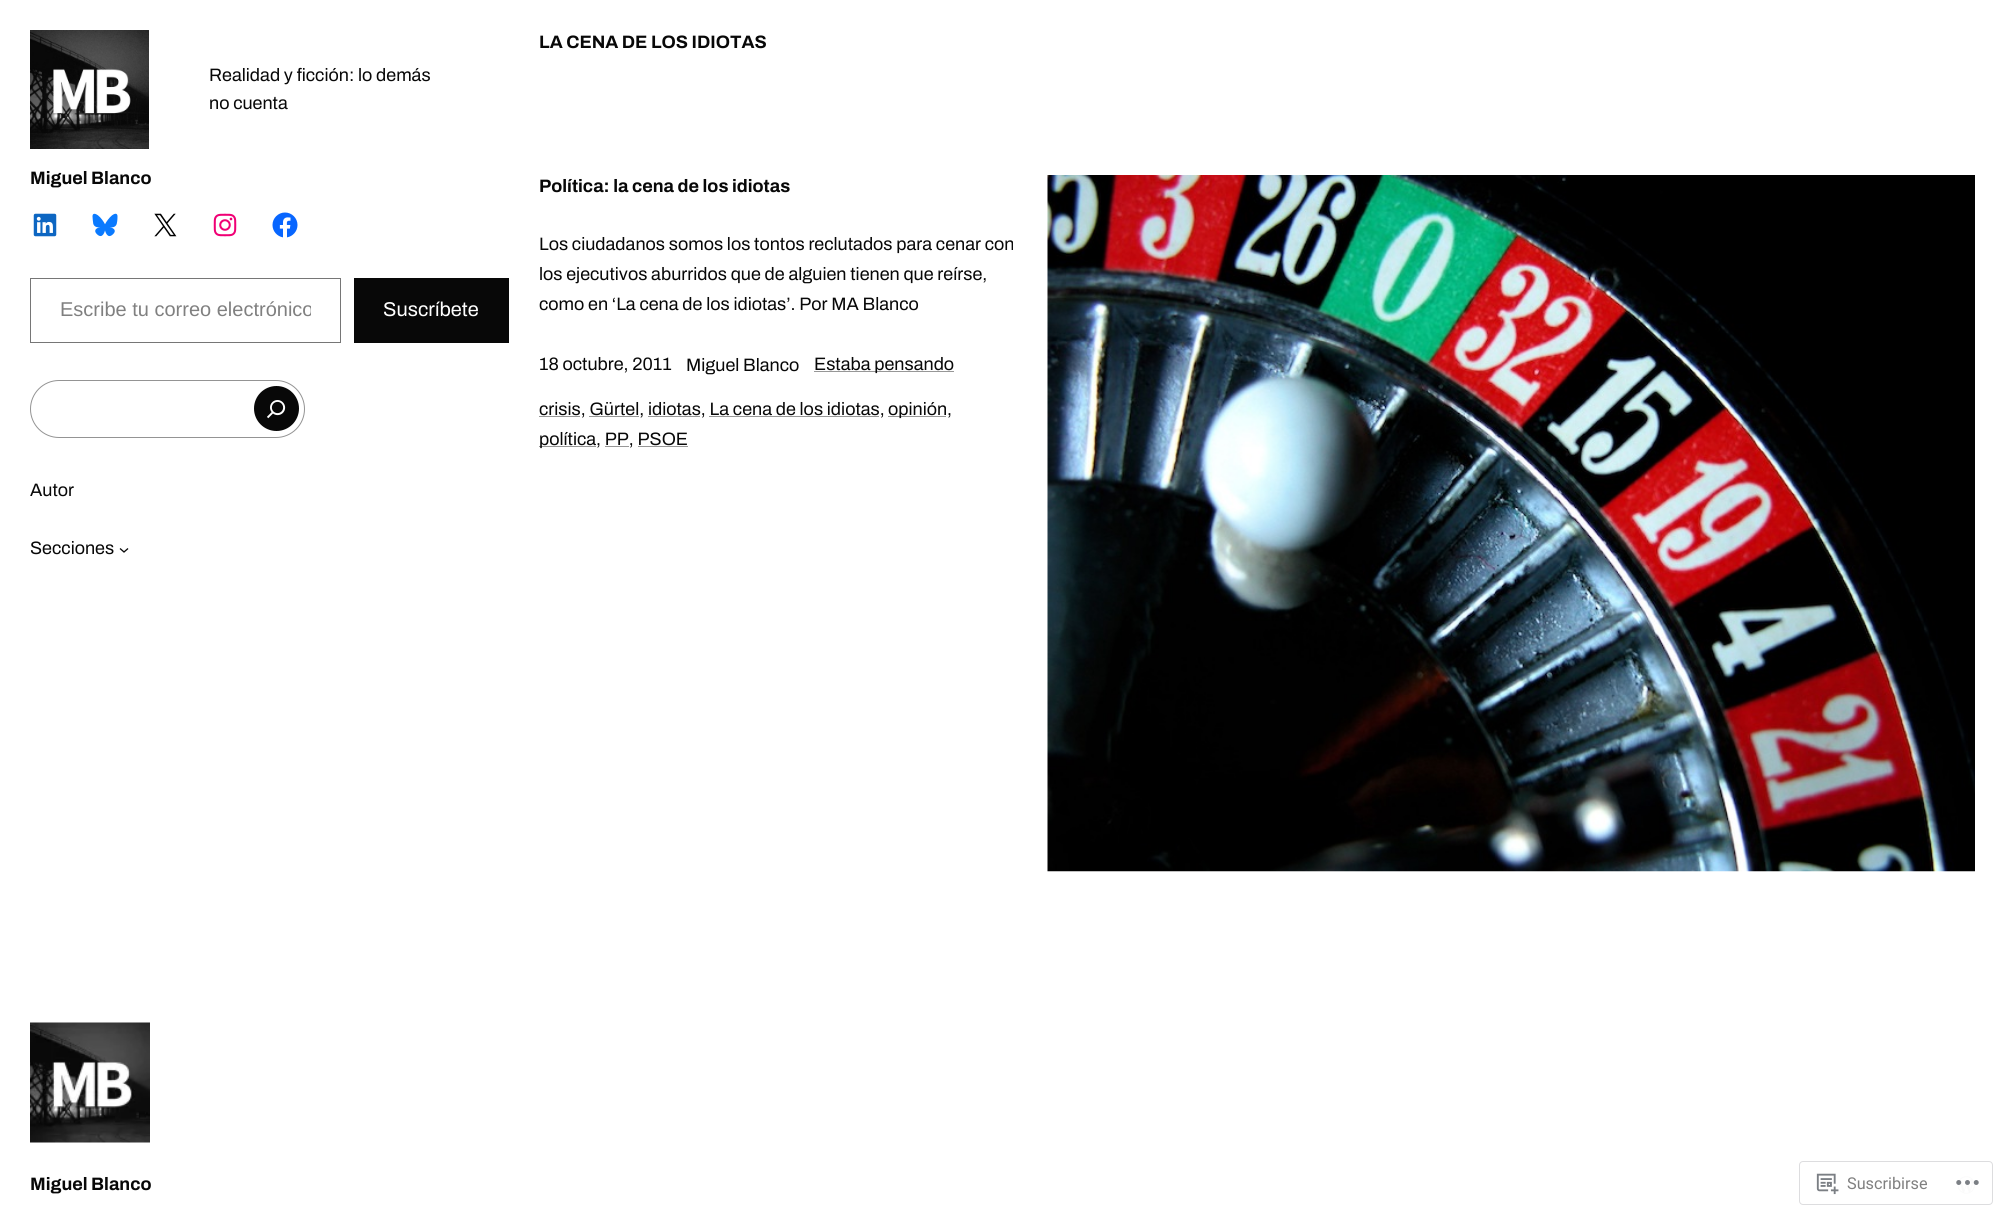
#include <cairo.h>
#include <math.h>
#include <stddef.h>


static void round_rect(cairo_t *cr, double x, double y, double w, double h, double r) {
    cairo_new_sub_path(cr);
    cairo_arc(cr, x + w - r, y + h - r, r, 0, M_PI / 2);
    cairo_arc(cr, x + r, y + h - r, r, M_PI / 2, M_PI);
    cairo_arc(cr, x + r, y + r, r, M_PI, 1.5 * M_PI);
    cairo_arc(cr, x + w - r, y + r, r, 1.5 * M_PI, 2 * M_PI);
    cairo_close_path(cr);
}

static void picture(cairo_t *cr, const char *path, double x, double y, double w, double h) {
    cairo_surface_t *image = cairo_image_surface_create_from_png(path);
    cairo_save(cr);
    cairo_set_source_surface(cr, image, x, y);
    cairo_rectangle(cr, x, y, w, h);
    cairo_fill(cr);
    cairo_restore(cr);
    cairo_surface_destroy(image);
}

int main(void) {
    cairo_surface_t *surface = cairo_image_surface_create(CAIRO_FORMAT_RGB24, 2005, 1217);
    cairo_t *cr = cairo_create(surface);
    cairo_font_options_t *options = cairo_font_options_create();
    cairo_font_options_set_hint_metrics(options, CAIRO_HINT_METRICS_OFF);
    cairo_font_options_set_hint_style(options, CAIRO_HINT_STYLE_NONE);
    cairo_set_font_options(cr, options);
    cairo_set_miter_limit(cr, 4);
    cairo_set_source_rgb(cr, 1, 1, 1);
    cairo_paint(cr);
    picture(cr, "img1.png", 30, 30, 119, 119);
    cairo_select_font_face(cr, "Archivo", CAIRO_FONT_SLANT_NORMAL, CAIRO_FONT_WEIGHT_NORMAL);
    cairo_set_font_size(cr, 18);
    cairo_set_source_rgb(cr, 0.035, 0.035, 0.035);
    cairo_move_to(cr, 209, 81);
    cairo_show_text(cr, "Realidad y ficción: lo demás");
    cairo_move_to(cr, 209, 109);
    cairo_show_text(cr, "no cuenta");
    cairo_select_font_face(cr, "Archivo", CAIRO_FONT_SLANT_NORMAL, CAIRO_FONT_WEIGHT_BOLD);
    cairo_move_to(cr, 30, 184);
    cairo_show_text(cr, "Miguel Blanco");
    picture(cr, "img2.png", 33, 213, 24, 24);
    picture(cr, "img3.png", 92, 213, 26, 24);
    picture(cr, "img4.png", 154, 213, 23, 24);
    picture(cr, "img5.png", 213, 213, 24, 24);
    picture(cr, "img6.png", 272, 212, 26, 26);
    cairo_rectangle(cr, 30.5, 278.5, 310, 64);
    cairo_set_source_rgb(cr, 0.463, 0.463, 0.463);
    cairo_set_line_width(cr, 1);
    cairo_stroke(cr);
    cairo_save(cr);
    cairo_rectangle(cr, 60, 299, 251, 22);
    cairo_clip(cr);
    cairo_select_font_face(cr, "Liberation Sans", CAIRO_FONT_SLANT_NORMAL, CAIRO_FONT_WEIGHT_NORMAL);
    cairo_set_font_size(cr, 20);
    cairo_set_source_rgb(cr, 0.502, 0.502, 0.502);
    cairo_move_to(cr, 60, 316);
    cairo_show_text(cr, "Escribe tu correo electrónico");
    cairo_restore(cr);
    cairo_set_source_rgb(cr, 0.035, 0.035, 0.035);
    cairo_rectangle(cr, 354, 278, 155, 65);
    cairo_fill(cr);
    cairo_select_font_face(cr, "Archivo", CAIRO_FONT_SLANT_NORMAL, CAIRO_FONT_WEIGHT_NORMAL);
    cairo_set_font_size(cr, 20);
    cairo_set_source_rgb(cr, 1, 1, 1);
    cairo_move_to(cr, 383, 316);
    cairo_show_text(cr, "Suscríbete");
    round_rect(cr, 30.5, 380.5, 274, 57, 28.5);
    cairo_set_source_rgb(cr, 0.58, 0.58, 0.58);
    cairo_stroke(cr);
    cairo_set_source_rgb(cr, 0.035, 0.035, 0.035);
    cairo_arc(cr, 276.5, 408.5, 22.5, 0, 2 * M_PI);
    cairo_fill(cr);
    picture(cr, "img7.png", 267, 400, 19, 19);
    cairo_set_font_size(cr, 18);
    cairo_move_to(cr, 30, 496);
    cairo_show_text(cr, "Autor");
    cairo_move_to(cr, 30, 554);
    cairo_show_text(cr, "Secciones");
    cairo_new_path(cr);
    cairo_move_to(cr, 120, 548.5);
    cairo_line_to(cr, 124, 552);
    cairo_line_to(cr, 128, 548.5);
    cairo_set_line_width(cr, 1.3);
    cairo_stroke(cr);
    cairo_select_font_face(cr, "Archivo", CAIRO_FONT_SLANT_NORMAL, CAIRO_FONT_WEIGHT_BOLD);
    cairo_move_to(cr, 539, 48);
    cairo_show_text(cr, "LA CENA DE LOS IDIOTAS");
    cairo_move_to(cr, 539, 192);
    cairo_show_text(cr, "Política: la cena de los idiotas");
    cairo_select_font_face(cr, "Archivo", CAIRO_FONT_SLANT_NORMAL, CAIRO_FONT_WEIGHT_NORMAL);
    cairo_move_to(cr, 539, 250);
    cairo_show_text(cr, "Los ciudadanos somos los tontos reclutados para cenar con");
    cairo_move_to(cr, 539, 280);
    cairo_show_text(cr, "los ejecutivos aburridos que de alguien tienen que reírse,");
    cairo_move_to(cr, 539, 310);
    cairo_show_text(cr, "como en ‘La cena de los idiotas’. Por MA Blanco");
    cairo_move_to(cr, 539, 370);
    cairo_show_text(cr, "18 octubre, 2011");
    cairo_move_to(cr, 686, 371);
    cairo_show_text(cr, "Miguel Blanco");
    cairo_set_source_rgb(cr, 0.592, 0.592, 0.592);
    cairo_rectangle(cr, 814, 371, 140, 1);
    cairo_fill(cr);
    cairo_set_source_rgb(cr, 0.035, 0.035, 0.035);
    cairo_move_to(cr, 814, 370);
    cairo_show_text(cr, "Estaba pensando");
    cairo_set_source_rgb(cr, 0.592, 0.592, 0.592);
    cairo_rectangle(cr, 539, 416, 41, 1);
    cairo_fill(cr);
    cairo_set_source_rgb(cr, 0.035, 0.035, 0.035);
    cairo_move_to(cr, 539, 415);
    cairo_show_text(cr, "crisis, Gürtel, idiotas, La cena de los idiotas,");
    cairo_set_source_rgb(cr, 0.592, 0.592, 0.592);
    cairo_rectangle(cr, 888, 416, 58, 1);
    cairo_fill(cr);
    cairo_set_source_rgb(cr, 0.035, 0.035, 0.035);
    cairo_move_to(cr, 888, 415);
    cairo_show_text(cr, "opinión,");
    cairo_set_source_rgb(cr, 0.592, 0.592, 0.592);
    cairo_rectangle(cr, 589, 416, 50, 1);
    cairo_fill(cr);
    cairo_rectangle(cr, 648, 416, 52, 1);
    cairo_fill(cr);
    cairo_rectangle(cr, 709, 416, 170, 1);
    cairo_fill(cr);
    cairo_rectangle(cr, 539, 446, 57, 1);
    cairo_fill(cr);
    cairo_set_source_rgb(cr, 0.035, 0.035, 0.035);
    cairo_move_to(cr, 539, 445);
    cairo_show_text(cr, "política, PP, PSOE");
    cairo_set_source_rgb(cr, 0.592, 0.592, 0.592);
    cairo_rectangle(cr, 605, 446, 24, 1);
    cairo_fill(cr);
    cairo_rectangle(cr, 638, 446, 50, 1);
    cairo_fill(cr);
    picture(cr, "img8.png", 1047, 175, 928, 697);
    picture(cr, "img9.png", 30, 1022, 120, 121);
    cairo_select_font_face(cr, "Archivo", CAIRO_FONT_SLANT_NORMAL, CAIRO_FONT_WEIGHT_BOLD);
    cairo_set_source_rgb(cr, 0.035, 0.035, 0.035);
    cairo_move_to(cr, 30, 1190);
    cairo_show_text(cr, "Miguel Blanco");
    picture(cr, "img10.png", 1958, 1176, 17, 18);
    cairo_set_source_rgba(cr, 1, 1, 1, 0.98);
    round_rect(cr, 1799.5, 1161.5, 193, 43, 3.5);
    cairo_fill_preserve(cr);
    cairo_set_source_rgb(cr, 0.867, 0.867, 0.875);
    cairo_set_line_width(cr, 1);
    cairo_stroke(cr);
    picture(cr, "img11.png", 1816, 1173, 23, 22);
    cairo_select_font_face(cr, "Roboto", CAIRO_FONT_SLANT_NORMAL, CAIRO_FONT_WEIGHT_NORMAL);
    cairo_set_font_size(cr, 16.25);
    cairo_set_source_rgb(cr, 0.502, 0.502, 0.502);
    cairo_move_to(cr, 1847, 1189);
    cairo_show_text(cr, "Suscribirse");
    picture(cr, "img12.png", 1956, 1180, 23, 5);
    cairo_surface_write_to_png(surface, "page.png");
    cairo_font_options_destroy(options);
    cairo_destroy(cr);
    cairo_surface_destroy(surface);
    return 0;
}
